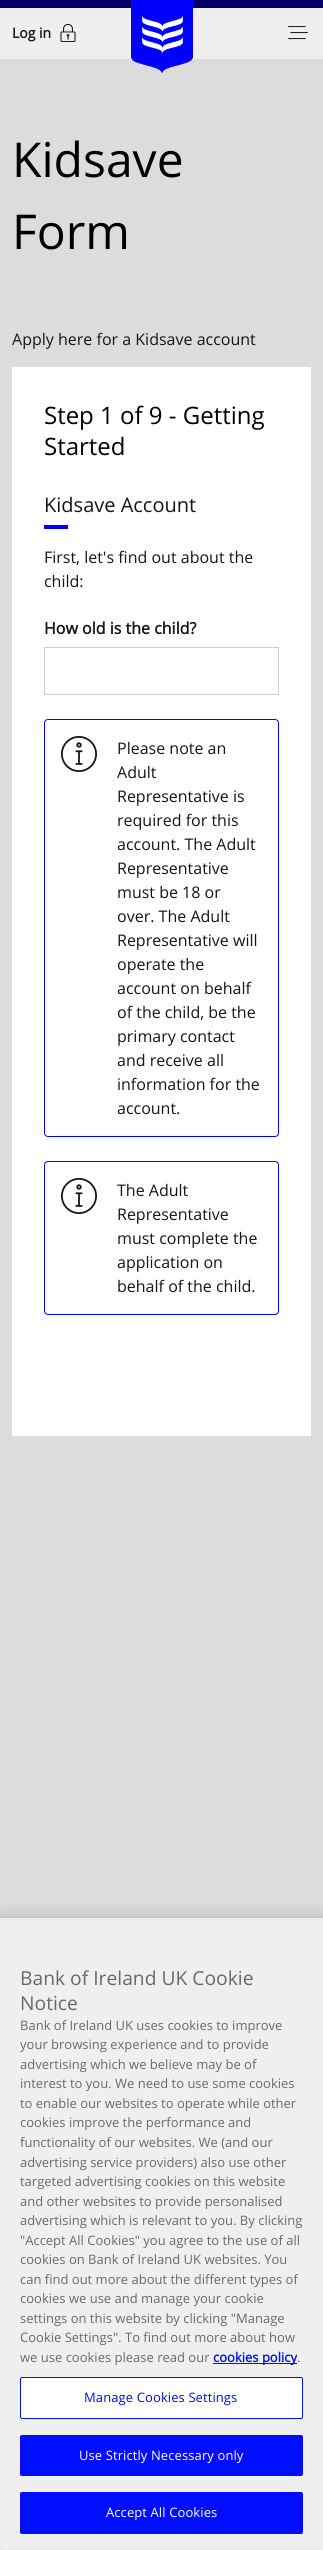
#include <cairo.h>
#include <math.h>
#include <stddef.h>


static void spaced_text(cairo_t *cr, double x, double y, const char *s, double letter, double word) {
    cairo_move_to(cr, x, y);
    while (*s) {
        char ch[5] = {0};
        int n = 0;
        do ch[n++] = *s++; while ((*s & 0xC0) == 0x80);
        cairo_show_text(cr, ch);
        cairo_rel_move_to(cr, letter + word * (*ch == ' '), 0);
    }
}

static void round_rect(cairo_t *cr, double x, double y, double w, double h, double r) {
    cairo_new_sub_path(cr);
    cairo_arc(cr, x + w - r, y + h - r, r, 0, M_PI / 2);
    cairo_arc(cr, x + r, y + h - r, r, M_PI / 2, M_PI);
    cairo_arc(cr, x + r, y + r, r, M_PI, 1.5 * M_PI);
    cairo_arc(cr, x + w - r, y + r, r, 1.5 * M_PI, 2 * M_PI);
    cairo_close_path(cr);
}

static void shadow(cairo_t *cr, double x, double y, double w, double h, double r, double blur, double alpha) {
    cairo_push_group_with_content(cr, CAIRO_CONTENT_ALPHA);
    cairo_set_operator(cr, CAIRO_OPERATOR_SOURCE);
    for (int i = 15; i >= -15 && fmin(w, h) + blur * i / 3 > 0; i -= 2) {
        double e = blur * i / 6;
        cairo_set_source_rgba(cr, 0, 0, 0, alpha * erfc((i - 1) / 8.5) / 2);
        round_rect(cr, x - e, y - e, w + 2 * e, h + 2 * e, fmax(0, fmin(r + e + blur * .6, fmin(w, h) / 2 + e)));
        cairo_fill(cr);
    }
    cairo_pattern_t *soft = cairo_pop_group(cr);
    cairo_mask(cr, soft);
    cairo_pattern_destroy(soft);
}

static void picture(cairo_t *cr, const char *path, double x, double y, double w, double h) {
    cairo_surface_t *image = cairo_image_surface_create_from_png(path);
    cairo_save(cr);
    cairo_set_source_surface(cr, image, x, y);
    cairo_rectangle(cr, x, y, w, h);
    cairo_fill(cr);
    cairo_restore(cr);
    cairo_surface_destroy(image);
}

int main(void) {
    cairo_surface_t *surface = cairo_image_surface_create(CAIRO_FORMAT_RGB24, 323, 2550);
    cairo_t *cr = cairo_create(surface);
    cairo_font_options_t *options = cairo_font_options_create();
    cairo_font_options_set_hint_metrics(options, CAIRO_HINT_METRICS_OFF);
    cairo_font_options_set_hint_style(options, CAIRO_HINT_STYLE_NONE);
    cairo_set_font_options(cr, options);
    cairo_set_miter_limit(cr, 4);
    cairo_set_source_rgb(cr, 0.863, 0.863, 0.863);
    cairo_paint(cr);
    cairo_set_source_rgb(cr, 0.937, 0.937, 0.937);
    cairo_rectangle(cr, 0, 8, 323, 51);
    cairo_fill(cr);
    cairo_set_source_rgb(cr, 0, 0, 0.4);
    cairo_rectangle(cr, 0, 0, 323, 8);
    cairo_fill(cr);
    cairo_select_font_face(cr, "Open Sans", CAIRO_FONT_SLANT_NORMAL, CAIRO_FONT_WEIGHT_BOLD);
    cairo_set_font_size(cr, 14);
    cairo_set_source_rgb(cr, 0.086, 0.086, 0.086);
    cairo_move_to(cr, 12, 38);
    cairo_show_text(cr, "Log in");
    picture(cr, "img1.png", 60, 24, 16, 18);
    picture(cr, "img2.png", 131, 0, 62, 73);
    picture(cr, "img3.png", 288, 26, 20, 14);
    cairo_select_font_face(cr, "Open Sans", CAIRO_FONT_SLANT_NORMAL, CAIRO_FONT_WEIGHT_NORMAL);
    cairo_set_font_size(cr, 48);
    cairo_set_source_rgb(cr, 0, 0, 0);
    cairo_move_to(cr, 12, 177);
    cairo_show_text(cr, "Kidsave");
    cairo_move_to(cr, 12, 249);
    cairo_show_text(cr, "Form");
    cairo_set_font_size(cr, 16);
    cairo_set_source_rgb(cr, 0.086, 0.086, 0.086);
    cairo_move_to(cr, 12, 345);
    cairo_show_text(cr, "Apply here for a Kidsave account");
    cairo_set_source_rgb(cr, 1, 1, 1);
    cairo_rectangle(cr, 12, 367, 299, 1069);
    cairo_fill(cr);
    cairo_set_font_size(cr, 24);
    cairo_set_source_rgb(cr, 0, 0, 0);
    cairo_move_to(cr, 44, 424);
    cairo_show_text(cr, "Step 1 of 9 - Getting");
    cairo_move_to(cr, 44, 455);
    cairo_show_text(cr, "Started");
    cairo_set_font_size(cr, 20);
    cairo_set_source_rgb(cr, 0.086, 0.086, 0.086);
    cairo_move_to(cr, 44, 512);
    cairo_show_text(cr, "Kidsave Account");
    cairo_set_source_rgb(cr, 0, 0, 1);
    cairo_rectangle(cr, 44, 525, 24, 4);
    cairo_fill(cr);
    cairo_set_font_size(cr, 16);
    cairo_set_source_rgb(cr, 0.086, 0.086, 0.086);
    cairo_move_to(cr, 44, 563);
    cairo_show_text(cr, "First, let's find out about the");
    cairo_move_to(cr, 44, 587);
    cairo_show_text(cr, "child:");
    cairo_select_font_face(cr, "Open Sans", CAIRO_FONT_SLANT_NORMAL, CAIRO_FONT_WEIGHT_BOLD);
    cairo_move_to(cr, 44, 634);
    cairo_show_text(cr, "How old is the child?");
    cairo_rectangle(cr, 44.5, 647.5, 234, 47);
    cairo_set_source_rgb(cr, 0.8, 0.8, 0.8);
    cairo_set_line_width(cr, 1);
    cairo_stroke(cr);
    picture(cr, "img4.png", 61, 736, 36, 36);
    round_rect(cr, 44.5, 719.5, 234, 417, 3.5);
    cairo_set_source_rgb(cr, 0, 0, 1);
    cairo_stroke(cr);
    cairo_select_font_face(cr, "Open Sans", CAIRO_FONT_SLANT_NORMAL, CAIRO_FONT_WEIGHT_NORMAL);
    cairo_set_source_rgb(cr, 0.086, 0.086, 0.086);
    cairo_move_to(cr, 117, 754);
    cairo_show_text(cr, "Please note an");
    cairo_move_to(cr, 117, 778);
    cairo_show_text(cr, "Adult");
    cairo_move_to(cr, 117, 802);
    cairo_show_text(cr, "Representative is");
    cairo_move_to(cr, 117, 826);
    cairo_show_text(cr, "required for this");
    cairo_move_to(cr, 117, 850);
    cairo_show_text(cr, "account. The Adult");
    cairo_move_to(cr, 117, 874);
    cairo_show_text(cr, "Representative");
    cairo_move_to(cr, 117, 898);
    cairo_show_text(cr, "must be 18 or");
    cairo_move_to(cr, 117, 922);
    cairo_show_text(cr, "over. The Adult");
    cairo_move_to(cr, 117, 946);
    cairo_show_text(cr, "Representative will");
    cairo_move_to(cr, 117, 970);
    cairo_show_text(cr, "operate the");
    cairo_move_to(cr, 117, 994);
    cairo_show_text(cr, "account on behalf");
    cairo_move_to(cr, 117, 1018);
    cairo_show_text(cr, "of the child, be the");
    cairo_move_to(cr, 117, 1042);
    cairo_show_text(cr, "primary contact");
    cairo_move_to(cr, 117, 1066);
    cairo_show_text(cr, "and receive all");
    cairo_move_to(cr, 117, 1090);
    cairo_show_text(cr, "information for the");
    cairo_move_to(cr, 117, 1114);
    cairo_show_text(cr, "account.");
    picture(cr, "img4.png", 61, 1178, 36, 36);
    round_rect(cr, 44.5, 1161.5, 234, 153, 3.5);
    cairo_set_source_rgb(cr, 0, 0, 1);
    cairo_stroke(cr);
    cairo_set_source_rgb(cr, 0.086, 0.086, 0.086);
    cairo_move_to(cr, 117, 1196);
    cairo_show_text(cr, "The Adult");
    cairo_move_to(cr, 117, 1220);
    cairo_show_text(cr, "Representative");
    cairo_move_to(cr, 117, 1244);
    cairo_show_text(cr, "must complete the");
    cairo_move_to(cr, 117, 1268);
    cairo_show_text(cr, "application on");
    cairo_move_to(cr, 117, 1292);
    cairo_show_text(cr, "behalf of the child.");
    cairo_set_source_rgb(cr, 0, 0, 0);
    shadow(cr, 0, 1918, 323, 632, 0, 9, 0.2);
    cairo_set_source_rgb(cr, 0.937, 0.937, 0.937);
    cairo_rectangle(cr, 0, 1918, 323, 632);
    cairo_fill(cr);
    cairo_rectangle(cr, 1.5, 1919.5, 320, 629);
    cairo_set_source_rgb(cr, 0.914, 0.914, 0.914);
    cairo_stroke(cr);
    cairo_set_font_size(cr, 19.25);
    cairo_set_source_rgb(cr, 0.412, 0.412, 0.412);
    cairo_move_to(cr, 20, 1985);
    cairo_show_text(cr, "Bank of Ireland UK Cookie");
    cairo_move_to(cr, 20, 2010);
    cairo_show_text(cr, "Notice");
    cairo_set_font_size(cr, 13);
    cairo_move_to(cr, 20, 2030);
    cairo_show_text(cr, "Bank of Ireland UK uses cookies to improve");
    cairo_move_to(cr, 20, 2049);
    cairo_show_text(cr, "your browsing experience and to provide");
    cairo_move_to(cr, 20, 2069);
    cairo_show_text(cr, "advertising which we believe may be of");
    cairo_move_to(cr, 20, 2088);
    cairo_show_text(cr, "interest to you. We need to use some cookies");
    cairo_move_to(cr, 20, 2108);
    cairo_show_text(cr, "to enable our websites to operate while other");
    cairo_move_to(cr, 20, 2127);
    cairo_show_text(cr, "cookies improve the performance and");
    cairo_move_to(cr, 20, 2147);
    cairo_show_text(cr, "functionality of our websites. We (and our");
    cairo_move_to(cr, 20, 2167);
    cairo_show_text(cr, "advertising service providers) also use other");
    cairo_move_to(cr, 20, 2186);
    cairo_show_text(cr, "targeted advertising cookies on this website");
    cairo_move_to(cr, 20, 2206);
    cairo_show_text(cr, "and other websites to provide personalised");
    cairo_move_to(cr, 20, 2225);
    cairo_show_text(cr, "advertising which is relevant to you. By clicking");
    cairo_move_to(cr, 20, 2245);
    cairo_show_text(cr, "\"Accept All Cookies\" you agree to the use of all");
    cairo_move_to(cr, 20, 2264);
    cairo_show_text(cr, "cookies on Bank of Ireland UK websites. You");
    cairo_move_to(cr, 20, 2284);
    cairo_show_text(cr, "can find out more about the different types of");
    cairo_move_to(cr, 20, 2303);
    cairo_show_text(cr, "cookies we use and manage your cookie");
    cairo_move_to(cr, 20, 2323);
    cairo_show_text(cr, "settings on this website by clicking \"Manage");
    cairo_move_to(cr, 20, 2342);
    cairo_show_text(cr, "Cookie Settings\". To find out more about how");
    cairo_move_to(cr, 20, 2362);
    cairo_show_text(cr, "we use cookies please read our");
    cairo_set_source_rgb(cr, 0, 0.055, 1);
    cairo_rectangle(cr, 213, 2363, 84, 1);
    cairo_fill(cr);
    cairo_select_font_face(cr, "Open Sans", CAIRO_FONT_SLANT_NORMAL, CAIRO_FONT_WEIGHT_BOLD);
    cairo_move_to(cr, 213, 2362);
    cairo_show_text(cr, "cookies policy");
    cairo_select_font_face(cr, "Open Sans", CAIRO_FONT_SLANT_NORMAL, CAIRO_FONT_WEIGHT_NORMAL);
    cairo_set_source_rgb(cr, 0.412, 0.412, 0.412);
    cairo_move_to(cr, 297, 2362);
    cairo_show_text(cr, ".");
    cairo_set_source_rgb(cr, 1, 1, 1);
    round_rect(cr, 20.5, 2377.5, 282, 41, 1.5);
    cairo_fill_preserve(cr);
    cairo_set_source_rgb(cr, 0, 0.055, 1);
    cairo_stroke(cr);
    spaced_text(cr, 84, 2402, "Manage Cookies Settings", 0.1, 0);
    round_rect(cr, 20.5, 2435.5, 282, 40, 1.5);
    cairo_fill_preserve(cr);
    cairo_stroke(cr);
    cairo_set_source_rgb(cr, 1, 1, 1);
    spaced_text(cr, 79, 2460, "Use Strictly Necessary only", 0.1, 0);
    cairo_set_source_rgb(cr, 0, 0.055, 1);
    round_rect(cr, 20.5, 2492.5, 282, 41, 1.5);
    cairo_fill_preserve(cr);
    cairo_stroke(cr);
    cairo_set_source_rgb(cr, 1, 1, 1);
    spaced_text(cr, 106, 2517, "Accept All Cookies", 0.1, 0);
    cairo_surface_write_to_png(surface, "page.png");
    cairo_font_options_destroy(options);
    cairo_destroy(cr);
    cairo_surface_destroy(surface);
    return 0;
}
